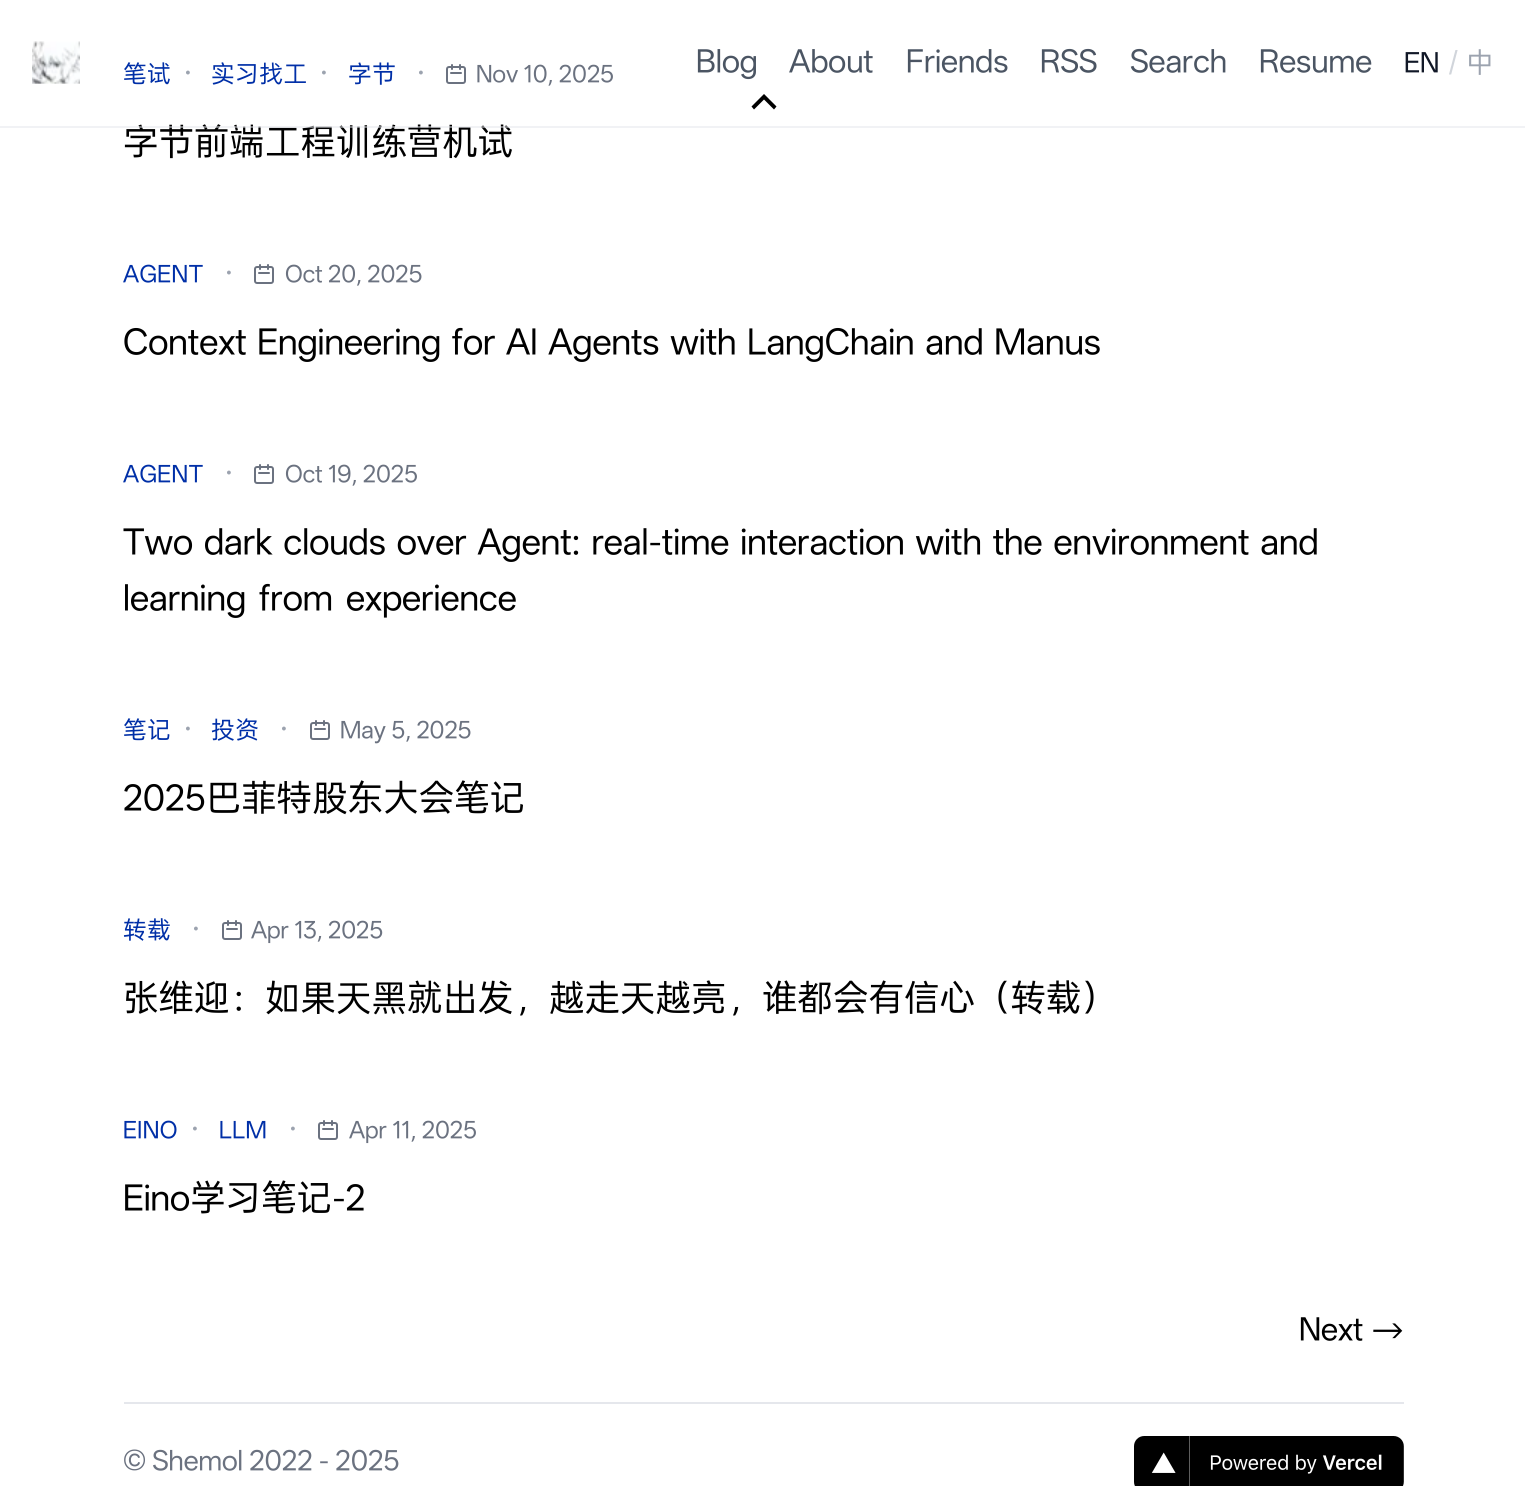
#include <cairo.h>
#include <math.h>
#include <stddef.h>


static void spaced_text(cairo_t *cr, double x, double y, const char *s, double letter, double word) {
    cairo_move_to(cr, x, y);
    while (*s) {
        char ch[5] = {0};
        int n = 0;
        do ch[n++] = *s++; while ((*s & 0xC0) == 0x80);
        cairo_show_text(cr, ch);
        cairo_rel_move_to(cr, letter + word * (*ch == ' '), 0);
    }
}

static void picture(cairo_t *cr, const char *path, double x, double y, double w, double h) {
    cairo_surface_t *image = cairo_image_surface_create_from_png(path);
    cairo_save(cr);
    cairo_set_source_surface(cr, image, x, y);
    cairo_rectangle(cr, x, y, w, h);
    cairo_fill(cr);
    cairo_restore(cr);
    cairo_surface_destroy(image);
}

int main(void) {
    cairo_surface_t *surface = cairo_image_surface_create(CAIRO_FORMAT_RGB24, 1525, 1486);
    cairo_t *cr = cairo_create(surface);
    cairo_font_options_t *options = cairo_font_options_create();
    cairo_font_options_set_hint_metrics(options, CAIRO_HINT_METRICS_OFF);
    cairo_font_options_set_hint_style(options, CAIRO_HINT_STYLE_NONE);
    cairo_set_font_options(cr, options);
    cairo_set_miter_limit(cr, 4);
    cairo_set_source_rgb(cr, 1, 1, 1);
    cairo_paint(cr);
    cairo_select_font_face(cr, "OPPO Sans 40", CAIRO_FONT_SLANT_NORMAL, CAIRO_FONT_WEIGHT_NORMAL);
    cairo_set_font_size(cr, 36);
    cairo_set_source_rgb(cr, 0, 0, 0);
    cairo_move_to(cr, 123, 154);
    cairo_show_text(cr, "字节前端工程训练营机试");
    cairo_set_source_rgba(cr, 0.898, 0.906, 0.922, 0.5);
    cairo_rectangle(cr, 0, 126, 1525, 2);
    cairo_fill(cr);
    picture(cr, "img1.png", 32, 41, 48, 43);
    cairo_set_font_size(cr, 32);
    cairo_set_source_rgb(cr, 0.294, 0.333, 0.388);
    cairo_move_to(cr, 696, 72);
    cairo_show_text(cr, "Blog");
    cairo_move_to(cr, 789, 72);
    cairo_show_text(cr, "About");
    cairo_move_to(cr, 906, 72);
    cairo_show_text(cr, "Friends");
    cairo_move_to(cr, 1040, 72);
    cairo_show_text(cr, "RSS");
    cairo_move_to(cr, 1130, 72);
    cairo_show_text(cr, "Search");
    cairo_move_to(cr, 1259, 72);
    cairo_show_text(cr, "Resume");
    cairo_set_font_size(cr, 28);
    cairo_set_source_rgb(cr, 0.067, 0.094, 0.153);
    cairo_move_to(cr, 1404, 72);
    cairo_show_text(cr, "EN");
    cairo_set_source_rgb(cr, 0.82, 0.835, 0.859);
    cairo_move_to(cr, 1448, 72);
    cairo_show_text(cr, "/");
    cairo_set_source_rgb(cr, 0.612, 0.639, 0.686);
    cairo_move_to(cr, 1466, 72);
    cairo_show_text(cr, "中");
    cairo_set_source_rgb(cr, 0, 0, 0);
    cairo_new_path(cr);
    cairo_move_to(cr, 764, 99.5);
    cairo_line_to(cr, 754, 109.5);
    cairo_line_to(cr, 751.5, 106.5);
    cairo_line_to(cr, 764, 94);
    cairo_line_to(cr, 776.5, 106.5);
    cairo_line_to(cr, 774, 109.5);
    cairo_close_path(cr);
    cairo_fill(cr);
    cairo_set_font_size(cr, 24);
    cairo_set_source_rgb(cr, 0, 0.184, 0.655);
    spaced_text(cr, 123, 82, "笔试", 0.5, 0);
    cairo_set_font_size(cr, 32);
    cairo_set_source_rgb(cr, 0.612, 0.639, 0.686);
    cairo_move_to(cr, 180, 84);
    cairo_show_text(cr, "·");
    cairo_set_font_size(cr, 24);
    cairo_set_source_rgb(cr, 0, 0.184, 0.655);
    spaced_text(cr, 211, 82, "实习找工", 0.5, 0);
    cairo_set_font_size(cr, 32);
    cairo_set_source_rgb(cr, 0.612, 0.639, 0.686);
    cairo_move_to(cr, 316, 84);
    cairo_show_text(cr, "·");
    cairo_set_font_size(cr, 24);
    cairo_set_source_rgb(cr, 0, 0.184, 0.655);
    spaced_text(cr, 348, 82, "字节", 0.5, 0);
    cairo_set_font_size(cr, 32);
    cairo_set_source_rgb(cr, 0.612, 0.639, 0.686);
    cairo_move_to(cr, 413, 84);
    cairo_show_text(cr, "·");
    picture(cr, "img2.png", 446, 64, 20, 20);
    cairo_set_font_size(cr, 24);
    cairo_set_source_rgb(cr, 0.42, 0.447, 0.502);
    cairo_move_to(cr, 476, 82);
    cairo_show_text(cr, "Nov 10, 2025");
    cairo_set_source_rgb(cr, 0, 0.184, 0.655);
    spaced_text(cr, 123, 282, "AGENT", 0.5, 0);
    cairo_set_font_size(cr, 32);
    cairo_set_source_rgb(cr, 0.612, 0.639, 0.686);
    cairo_move_to(cr, 221, 284);
    cairo_show_text(cr, "·");
    picture(cr, "img2.png", 254, 264, 20, 20);
    cairo_set_font_size(cr, 24);
    cairo_set_source_rgb(cr, 0.42, 0.447, 0.502);
    cairo_move_to(cr, 285, 282);
    cairo_show_text(cr, "Oct 20, 2025");
    cairo_set_font_size(cr, 36);
    cairo_set_source_rgb(cr, 0, 0, 0);
    spaced_text(cr, 123, 354, "Context Engineering for AI Agents with LangChain and Manus", 0, 2.75);
    cairo_set_font_size(cr, 24);
    cairo_set_source_rgb(cr, 0, 0.184, 0.655);
    spaced_text(cr, 123, 482, "AGENT", 0.5, 0);
    cairo_set_font_size(cr, 32);
    cairo_set_source_rgb(cr, 0.612, 0.639, 0.686);
    cairo_move_to(cr, 221, 484);
    cairo_show_text(cr, "·");
    picture(cr, "img2.png", 254, 464, 20, 20);
    cairo_set_font_size(cr, 24);
    cairo_set_source_rgb(cr, 0.42, 0.447, 0.502);
    cairo_move_to(cr, 285, 482);
    cairo_show_text(cr, "Oct 19, 2025");
    cairo_set_font_size(cr, 36);
    cairo_set_source_rgb(cr, 0, 0, 0);
    spaced_text(cr, 123, 554, "Two dark clouds over Agent: real-time interaction with the environment and", 0, 2.9);
    spaced_text(cr, 123, 610, "learning from experience", 0, 5);
    cairo_set_font_size(cr, 24);
    cairo_set_source_rgb(cr, 0, 0.184, 0.655);
    spaced_text(cr, 123, 738, "笔记", 0.5, 0);
    cairo_set_font_size(cr, 32);
    cairo_set_source_rgb(cr, 0.612, 0.639, 0.686);
    cairo_move_to(cr, 180, 740);
    cairo_show_text(cr, "·");
    cairo_set_font_size(cr, 24);
    cairo_set_source_rgb(cr, 0, 0.184, 0.655);
    spaced_text(cr, 211, 738, "投资", 0.5, 0);
    cairo_set_font_size(cr, 32);
    cairo_set_source_rgb(cr, 0.612, 0.639, 0.686);
    cairo_move_to(cr, 276, 740);
    cairo_show_text(cr, "·");
    picture(cr, "img2.png", 310, 720, 20, 20);
    cairo_set_font_size(cr, 24);
    cairo_set_source_rgb(cr, 0.42, 0.447, 0.502);
    cairo_move_to(cr, 340, 738);
    cairo_show_text(cr, "May 5, 2025");
    cairo_set_font_size(cr, 36);
    cairo_set_source_rgb(cr, 0, 0, 0);
    cairo_move_to(cr, 123, 810);
    cairo_show_text(cr, "2025巴菲特股东大会笔记");
    cairo_set_font_size(cr, 24);
    cairo_set_source_rgb(cr, 0, 0.184, 0.655);
    spaced_text(cr, 123, 938, "转载", 0.5, 0);
    cairo_set_font_size(cr, 32);
    cairo_set_source_rgb(cr, 0.612, 0.639, 0.686);
    cairo_move_to(cr, 188, 940);
    cairo_show_text(cr, "·");
    picture(cr, "img2.png", 222, 920, 20, 20);
    cairo_set_font_size(cr, 24);
    cairo_set_source_rgb(cr, 0.42, 0.447, 0.502);
    cairo_move_to(cr, 251, 938);
    cairo_show_text(cr, "Apr 13, 2025");
    cairo_set_font_size(cr, 36);
    cairo_set_source_rgb(cr, 0, 0, 0);
    cairo_move_to(cr, 123, 1010);
    cairo_show_text(cr, "张维迎：如果天黑就出发，越走天越亮，谁都会有信心（转载）");
    cairo_set_font_size(cr, 24);
    cairo_set_source_rgb(cr, 0, 0.184, 0.655);
    spaced_text(cr, 123, 1138, "EINO", 0.5, 0);
    cairo_set_font_size(cr, 32);
    cairo_set_source_rgb(cr, 0.612, 0.639, 0.686);
    cairo_move_to(cr, 187, 1140);
    cairo_show_text(cr, "·");
    cairo_set_font_size(cr, 24);
    cairo_set_source_rgb(cr, 0, 0.184, 0.655);
    spaced_text(cr, 219, 1138, "LLM", 0.5, 0);
    cairo_set_font_size(cr, 32);
    cairo_set_source_rgb(cr, 0.612, 0.639, 0.686);
    cairo_move_to(cr, 285, 1140);
    cairo_show_text(cr, "·");
    picture(cr, "img2.png", 318, 1120, 20, 20);
    cairo_set_font_size(cr, 24);
    cairo_set_source_rgb(cr, 0.42, 0.447, 0.502);
    cairo_move_to(cr, 349, 1138);
    cairo_show_text(cr, "Apr 11, 2025");
    cairo_set_font_size(cr, 36);
    cairo_set_source_rgb(cr, 0, 0, 0);
    cairo_move_to(cr, 123, 1210);
    cairo_show_text(cr, "Eino学习笔记-2");
    cairo_set_font_size(cr, 32);
    cairo_move_to(cr, 1299, 1340);
    cairo_show_text(cr, "Next");
    cairo_move_to(cr, 1372, 1340);
    cairo_show_text(cr, "→");
    cairo_set_source_rgb(cr, 0.898, 0.906, 0.922);
    cairo_rectangle(cr, 124, 1402, 1280, 2);
    cairo_fill(cr);
    cairo_set_font_size(cr, 28);
    cairo_set_source_rgb(cr, 0.42, 0.447, 0.502);
    cairo_move_to(cr, 123, 1470);
    cairo_show_text(cr, "© Shemol 2022 - 2025");
    picture(cr, "img3.png", 1134, 1436, 270, 50);
    cairo_surface_write_to_png(surface, "page.png");
    cairo_font_options_destroy(options);
    cairo_destroy(cr);
    cairo_surface_destroy(surface);
    return 0;
}
